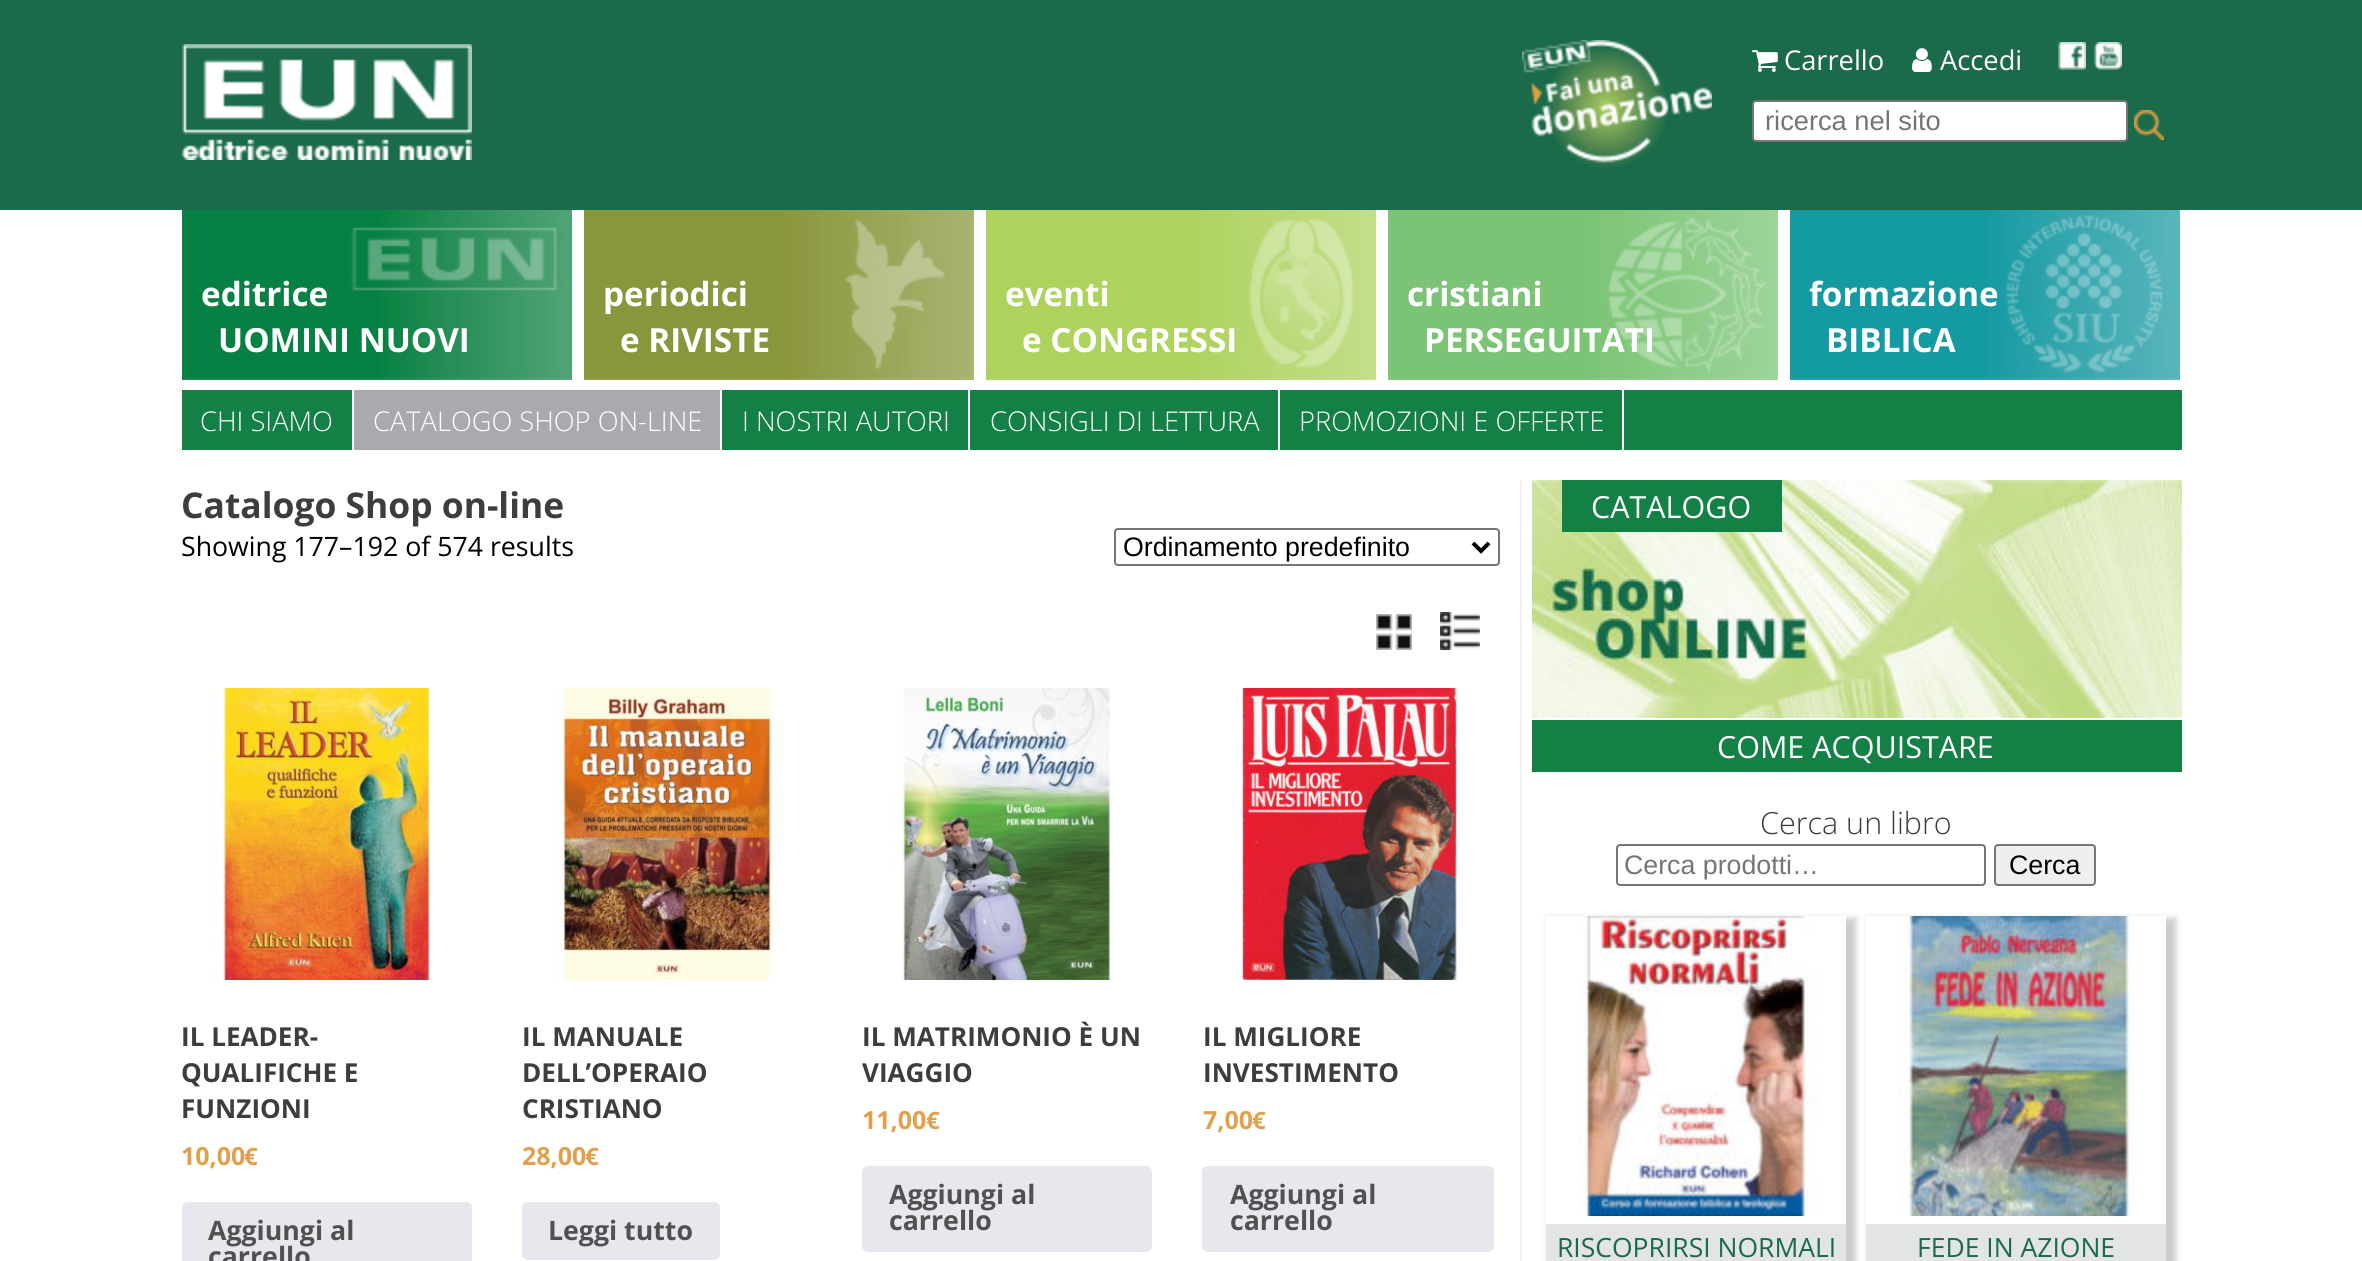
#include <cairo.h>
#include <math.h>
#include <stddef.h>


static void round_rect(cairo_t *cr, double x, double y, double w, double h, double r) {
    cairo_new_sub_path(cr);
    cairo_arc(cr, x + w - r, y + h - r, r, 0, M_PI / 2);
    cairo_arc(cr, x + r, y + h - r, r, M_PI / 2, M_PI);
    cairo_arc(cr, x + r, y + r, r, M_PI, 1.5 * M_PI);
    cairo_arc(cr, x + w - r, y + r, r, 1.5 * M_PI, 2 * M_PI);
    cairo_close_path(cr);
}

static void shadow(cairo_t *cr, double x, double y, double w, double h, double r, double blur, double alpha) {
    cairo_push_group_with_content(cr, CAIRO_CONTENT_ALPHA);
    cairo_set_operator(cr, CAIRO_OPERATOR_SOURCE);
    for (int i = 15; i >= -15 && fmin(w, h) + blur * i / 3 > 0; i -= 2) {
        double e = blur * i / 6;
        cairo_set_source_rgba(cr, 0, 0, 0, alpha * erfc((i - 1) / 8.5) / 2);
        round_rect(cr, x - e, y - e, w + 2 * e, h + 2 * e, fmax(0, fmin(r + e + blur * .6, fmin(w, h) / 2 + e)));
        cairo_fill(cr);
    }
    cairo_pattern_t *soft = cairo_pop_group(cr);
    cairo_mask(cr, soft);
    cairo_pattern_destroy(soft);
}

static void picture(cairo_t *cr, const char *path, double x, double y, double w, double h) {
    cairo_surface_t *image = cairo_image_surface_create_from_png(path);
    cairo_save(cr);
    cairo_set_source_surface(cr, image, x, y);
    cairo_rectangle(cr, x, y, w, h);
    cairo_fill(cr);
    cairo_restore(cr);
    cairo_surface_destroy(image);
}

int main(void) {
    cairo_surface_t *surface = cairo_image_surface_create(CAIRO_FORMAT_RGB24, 2362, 1261);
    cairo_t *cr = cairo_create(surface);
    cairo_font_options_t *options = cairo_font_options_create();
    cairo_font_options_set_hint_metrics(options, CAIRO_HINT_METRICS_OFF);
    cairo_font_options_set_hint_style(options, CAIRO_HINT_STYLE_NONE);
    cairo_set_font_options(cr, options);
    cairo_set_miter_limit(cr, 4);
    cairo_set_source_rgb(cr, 1, 1, 1);
    cairo_paint(cr);
    cairo_set_source_rgb(cr, 0.106, 0.416, 0.29);
    cairo_rectangle(cr, 0, 0, 2362, 210);
    cairo_fill(cr);
    picture(cr, "img1.png", 182, 44, 290, 116);
    picture(cr, "img2.png", 1522, 40, 190, 128);
    picture(cr, "img3.png", 1752, 50, 26, 22);
    cairo_select_font_face(cr, "Open Sans", CAIRO_FONT_SLANT_NORMAL, CAIRO_FONT_WEIGHT_NORMAL);
    cairo_set_font_size(cr, 27.25);
    cairo_set_source_rgb(cr, 1, 1, 1);
    cairo_move_to(cr, 1784, 70);
    cairo_show_text(cr, "Carrello");
    picture(cr, "img4.png", 1912, 48, 20, 24);
    cairo_move_to(cr, 1940, 70);
    cairo_show_text(cr, "Accedi");
    picture(cr, "img5.png", 2058, 42, 28, 28);
    picture(cr, "img6.png", 2094, 42, 28, 28);
    round_rect(cr, 1753, 101, 374, 40, 3);
    cairo_fill_preserve(cr);
    cairo_set_source_rgb(cr, 0.463, 0.463, 0.463);
    cairo_stroke(cr);
    cairo_select_font_face(cr, "Liberation Sans", CAIRO_FONT_SLANT_NORMAL, CAIRO_FONT_WEIGHT_NORMAL);
    cairo_set_source_rgb(cr, 0.459, 0.459, 0.459);
    cairo_move_to(cr, 1765, 130);
    cairo_show_text(cr, "ricerca nel sito");
    picture(cr, "img7.png", 2134, 110, 30, 30);
    picture(cr, "img8.png", 182, 210, 390, 170);
    cairo_select_font_face(cr, "Open Sans", CAIRO_FONT_SLANT_NORMAL, CAIRO_FONT_WEIGHT_BOLD);
    cairo_set_font_size(cr, 33.25);
    cairo_set_source_rgb(cr, 1, 1, 1);
    cairo_move_to(cr, 201, 306);
    cairo_show_text(cr, "editrice");
    cairo_move_to(cr, 218, 352);
    cairo_show_text(cr, "UOMINI NUOVI");
    picture(cr, "img9.png", 584, 210, 390, 170);
    cairo_move_to(cr, 603, 306);
    cairo_show_text(cr, "periodici");
    cairo_move_to(cr, 620, 352);
    cairo_show_text(cr, "e RIVISTE");
    picture(cr, "img10.png", 986, 210, 390, 170);
    cairo_move_to(cr, 1005, 306);
    cairo_show_text(cr, "eventi");
    cairo_move_to(cr, 1022, 352);
    cairo_show_text(cr, "e CONGRESSI");
    picture(cr, "img11.png", 1388, 210, 390, 170);
    cairo_move_to(cr, 1407, 306);
    cairo_show_text(cr, "cristiani");
    cairo_move_to(cr, 1424, 352);
    cairo_show_text(cr, "PERSEGUITATI");
    picture(cr, "img12.png", 1790, 210, 390, 170);
    cairo_move_to(cr, 1809, 306);
    cairo_show_text(cr, "formazione");
    cairo_move_to(cr, 1826, 352);
    cairo_show_text(cr, "BIBLICA");
    cairo_set_source_rgb(cr, 0.078, 0.502, 0.271);
    cairo_rectangle(cr, 182, 390, 2000, 60);
    cairo_fill(cr);
    cairo_set_source_rgb(cr, 1, 1, 1);
    cairo_rectangle(cr, 352, 390, 2, 60);
    cairo_fill(cr);
    cairo_select_font_face(cr, "Open Sans Light", CAIRO_FONT_SLANT_NORMAL, CAIRO_FONT_WEIGHT_NORMAL);
    cairo_set_font_size(cr, 27.25);
    cairo_move_to(cr, 200, 431);
    cairo_show_text(cr, "CHI SIAMO");
    cairo_set_source_rgb(cr, 0.659, 0.667, 0.678);
    cairo_rectangle(cr, 354, 390, 366, 60);
    cairo_fill(cr);
    cairo_set_source_rgb(cr, 1, 1, 1);
    cairo_rectangle(cr, 720, 390, 2, 60);
    cairo_fill(cr);
    cairo_move_to(cr, 373, 431);
    cairo_show_text(cr, "CATALOGO SHOP ON-LINE");
    cairo_rectangle(cr, 968, 390, 2, 60);
    cairo_fill(cr);
    cairo_move_to(cr, 742, 431);
    cairo_show_text(cr, "I NOSTRI AUTORI");
    cairo_rectangle(cr, 1278, 390, 2, 60);
    cairo_fill(cr);
    cairo_move_to(cr, 990, 431);
    cairo_show_text(cr, "CONSIGLI DI LETTURA");
    cairo_rectangle(cr, 1622, 390, 2, 60);
    cairo_fill(cr);
    cairo_move_to(cr, 1299, 431);
    cairo_show_text(cr, "PROMOZIONI E OFFERTE");
    cairo_set_source_rgb(cr, 0.945, 0.945, 0.949);
    cairo_rectangle(cr, 1520, 480, 2, 781);
    cairo_fill(cr);
    cairo_select_font_face(cr, "Open Sans", CAIRO_FONT_SLANT_NORMAL, CAIRO_FONT_WEIGHT_BOLD);
    cairo_set_font_size(cr, 35.4);
    cairo_set_source_rgb(cr, 0.239, 0.239, 0.239);
    cairo_move_to(cr, 181, 518);
    cairo_show_text(cr, "Catalogo Shop on-line");
    cairo_select_font_face(cr, "Open Sans", CAIRO_FONT_SLANT_NORMAL, CAIRO_FONT_WEIGHT_NORMAL);
    cairo_set_font_size(cr, 26.7);
    cairo_set_source_rgb(cr, 0, 0, 0);
    cairo_move_to(cr, 181, 556);
    cairo_show_text(cr, "Showing 177–192 of 574 results");
    round_rect(cr, 1115, 529, 384, 36, 3);
    cairo_set_source_rgb(cr, 0.463, 0.463, 0.463);
    cairo_stroke(cr);
    cairo_new_path(cr);
    cairo_move_to(cr, 1473, 543);
    cairo_line_to(cr, 1481, 551);
    cairo_line_to(cr, 1489, 543);
    cairo_set_source_rgb(cr, 0, 0, 0);
    cairo_set_line_width(cr, 4);
    cairo_stroke(cr);
    cairo_select_font_face(cr, "Liberation Sans", CAIRO_FONT_SLANT_NORMAL, CAIRO_FONT_WEIGHT_NORMAL);
    cairo_set_font_size(cr, 26.75);
    cairo_move_to(cr, 1123, 556);
    cairo_show_text(cr, "Ordinamento predefinito");
    picture(cr, "img13.png", 1376, 614, 36, 36);
    picture(cr, "img14.png", 1440, 612, 40, 38);
    picture(cr, "img15.png", 213, 688, 218, 292);
    cairo_select_font_face(cr, "Open Sans", CAIRO_FONT_SLANT_NORMAL, CAIRO_FONT_WEIGHT_BOLD);
    cairo_set_font_size(cr, 26.1);
    cairo_set_source_rgb(cr, 0.239, 0.239, 0.239);
    cairo_move_to(cr, 181, 1046);
    cairo_show_text(cr, "IL LEADER-");
    cairo_move_to(cr, 181, 1082);
    cairo_show_text(cr, "QUALIFICHE E");
    cairo_move_to(cr, 181, 1118);
    cairo_show_text(cr, "FUNZIONI");
    cairo_set_font_size(cr, 25);
    cairo_set_source_rgb(cr, 0.886, 0.627, 0.298);
    cairo_move_to(cr, 181, 1165);
    cairo_show_text(cr, "10,00");
    cairo_set_font_size(cr, 24);
    cairo_move_to(cr, 244, 1165);
    cairo_show_text(cr, "€");
    cairo_set_source_rgb(cr, 0.914, 0.902, 0.929);
    round_rect(cr, 182, 1202, 290, 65, 6);
    cairo_fill(cr);
    cairo_set_font_size(cr, 26.7);
    cairo_set_source_rgb(cr, 0.318, 0.318, 0.318);
    cairo_move_to(cr, 208, 1240);
    cairo_show_text(cr, "Aggiungi al");
    cairo_move_to(cr, 208, 1266);
    cairo_show_text(cr, "carrello");
    picture(cr, "img16.png", 553, 688, 228, 292);
    cairo_set_font_size(cr, 26.1);
    cairo_set_source_rgb(cr, 0.239, 0.239, 0.239);
    cairo_move_to(cr, 522, 1046);
    cairo_show_text(cr, "IL MANUALE");
    cairo_move_to(cr, 522, 1082);
    cairo_show_text(cr, "DELL’OPERAIO");
    cairo_move_to(cr, 522, 1118);
    cairo_show_text(cr, "CRISTIANO");
    cairo_set_font_size(cr, 25);
    cairo_set_source_rgb(cr, 0.886, 0.627, 0.298);
    cairo_move_to(cr, 522, 1165);
    cairo_show_text(cr, "28,00");
    cairo_set_font_size(cr, 24);
    cairo_move_to(cr, 585, 1165);
    cairo_show_text(cr, "€");
    cairo_set_source_rgb(cr, 0.914, 0.902, 0.929);
    round_rect(cr, 522, 1202, 198, 58, 6);
    cairo_fill(cr);
    cairo_set_font_size(cr, 26.7);
    cairo_set_source_rgb(cr, 0.318, 0.318, 0.318);
    cairo_move_to(cr, 548, 1240);
    cairo_show_text(cr, "Leggi tutto");
    picture(cr, "img17.png", 893, 688, 218, 292);
    cairo_set_font_size(cr, 26.1);
    cairo_set_source_rgb(cr, 0.239, 0.239, 0.239);
    cairo_move_to(cr, 862, 1046);
    cairo_show_text(cr, "IL MATRIMONIO È UN");
    cairo_move_to(cr, 862, 1082);
    cairo_show_text(cr, "VIAGGIO");
    cairo_set_font_size(cr, 25);
    cairo_set_source_rgb(cr, 0.886, 0.627, 0.298);
    cairo_move_to(cr, 862, 1129);
    cairo_show_text(cr, "11,00");
    cairo_set_font_size(cr, 24);
    cairo_move_to(cr, 926, 1129);
    cairo_show_text(cr, "€");
    cairo_set_source_rgb(cr, 0.914, 0.902, 0.929);
    round_rect(cr, 862, 1166, 290, 86, 6);
    cairo_fill(cr);
    cairo_set_font_size(cr, 26.7);
    cairo_set_source_rgb(cr, 0.318, 0.318, 0.318);
    cairo_move_to(cr, 889, 1204);
    cairo_show_text(cr, "Aggiungi al");
    cairo_move_to(cr, 889, 1230);
    cairo_show_text(cr, "carrello");
    picture(cr, "img18.png", 1241, 688, 218, 292);
    cairo_set_font_size(cr, 26.1);
    cairo_set_source_rgb(cr, 0.239, 0.239, 0.239);
    cairo_move_to(cr, 1203, 1046);
    cairo_show_text(cr, "IL MIGLIORE");
    cairo_move_to(cr, 1203, 1082);
    cairo_show_text(cr, "INVESTIMENTO");
    cairo_set_font_size(cr, 25);
    cairo_set_source_rgb(cr, 0.886, 0.627, 0.298);
    cairo_move_to(cr, 1203, 1129);
    cairo_show_text(cr, "7,00");
    cairo_set_font_size(cr, 24);
    cairo_move_to(cr, 1252, 1129);
    cairo_show_text(cr, "€");
    cairo_set_source_rgb(cr, 0.914, 0.902, 0.929);
    round_rect(cr, 1202, 1166, 292, 86, 6);
    cairo_fill(cr);
    cairo_set_font_size(cr, 26.7);
    cairo_set_source_rgb(cr, 0.318, 0.318, 0.318);
    cairo_move_to(cr, 1230, 1204);
    cairo_show_text(cr, "Aggiungi al");
    cairo_move_to(cr, 1230, 1230);
    cairo_show_text(cr, "carrello");
    picture(cr, "img19.png", 1532, 480, 650, 238);
    cairo_set_source_rgb(cr, 0.078, 0.502, 0.271);
    cairo_rectangle(cr, 1562, 480, 220, 52);
    cairo_fill(cr);
    cairo_select_font_face(cr, "Open Sans", CAIRO_FONT_SLANT_NORMAL, CAIRO_FONT_WEIGHT_NORMAL);
    cairo_set_font_size(cr, 30.5);
    cairo_set_source_rgb(cr, 1, 1, 1);
    cairo_move_to(cr, 1591, 518);
    cairo_show_text(cr, "CATALOGO");
    cairo_set_source_rgb(cr, 0.078, 0.502, 0.271);
    cairo_rectangle(cr, 1532, 720, 650, 52);
    cairo_fill(cr);
    cairo_set_source_rgb(cr, 1, 1, 1);
    cairo_move_to(cr, 1717, 758);
    cairo_show_text(cr, "COME ACQUISTARE");
    cairo_select_font_face(cr, "Open Sans Light", CAIRO_FONT_SLANT_NORMAL, CAIRO_FONT_WEIGHT_NORMAL);
    cairo_set_source_rgb(cr, 0.239, 0.239, 0.239);
    cairo_move_to(cr, 1760, 834);
    cairo_show_text(cr, "Cerca un libro");
    round_rect(cr, 1617, 845, 368, 40, 3);
    cairo_set_source_rgb(cr, 0.463, 0.463, 0.463);
    cairo_set_line_width(cr, 2);
    cairo_stroke(cr);
    cairo_select_font_face(cr, "Liberation Sans", CAIRO_FONT_SLANT_NORMAL, CAIRO_FONT_WEIGHT_NORMAL);
    cairo_set_font_size(cr, 26.75);
    cairo_set_source_rgb(cr, 0.459, 0.459, 0.459);
    cairo_move_to(cr, 1624, 874);
    cairo_show_text(cr, "Cerca prodotti…");
    cairo_set_source_rgb(cr, 0.937, 0.937, 0.937);
    round_rect(cr, 1995, 845, 100, 40, 3);
    cairo_fill_preserve(cr);
    cairo_set_source_rgb(cr, 0.463, 0.463, 0.463);
    cairo_stroke(cr);
    cairo_set_source_rgb(cr, 0, 0, 0);
    cairo_move_to(cr, 2009, 874);
    cairo_show_text(cr, "Cerca");
    cairo_save(cr);
    cairo_set_fill_rule(cr, CAIRO_FILL_RULE_EVEN_ODD);
    cairo_new_path(cr);
    cairo_move_to(cr, 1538, 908);
    cairo_line_to(cr, 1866, 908);
    cairo_line_to(cr, 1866, 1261);
    cairo_line_to(cr, 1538, 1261);
    cairo_close_path(cr);
    cairo_move_to(cr, 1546, 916);
    cairo_line_to(cr, 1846, 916);
    cairo_line_to(cr, 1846, 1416);
    cairo_line_to(cr, 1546, 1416);
    cairo_close_path(cr);
    cairo_clip(cr);
    cairo_set_source_rgb(cr, 0.8, 0.8, 0.8);
    shadow(cr, 1548, 918, 308, 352, 0, 3, 1);
    cairo_restore(cr);
    picture(cr, "img20.png", 1578, 916, 240, 300);
    cairo_set_source_rgb(cr, 0.89, 0.894, 0.898);
    cairo_rectangle(cr, 1546, 1224, 300, 37);
    cairo_fill(cr);
    cairo_select_font_face(cr, "Open Sans", CAIRO_FONT_SLANT_NORMAL, CAIRO_FONT_WEIGHT_NORMAL);
    cairo_set_font_size(cr, 26.5);
    cairo_set_source_rgb(cr, 0.106, 0.416, 0.29);
    cairo_move_to(cr, 1557, 1257);
    cairo_show_text(cr, "RISCOPRIRSI NORMALI");
    cairo_save(cr);
    cairo_set_fill_rule(cr, CAIRO_FILL_RULE_EVEN_ODD);
    cairo_new_path(cr);
    cairo_move_to(cr, 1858, 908);
    cairo_line_to(cr, 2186, 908);
    cairo_line_to(cr, 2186, 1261);
    cairo_line_to(cr, 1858, 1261);
    cairo_close_path(cr);
    cairo_move_to(cr, 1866, 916);
    cairo_line_to(cr, 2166, 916);
    cairo_line_to(cr, 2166, 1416);
    cairo_line_to(cr, 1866, 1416);
    cairo_close_path(cr);
    cairo_clip(cr);
    cairo_set_source_rgb(cr, 0.8, 0.8, 0.8);
    shadow(cr, 1868, 918, 308, 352, 0, 3, 1);
    cairo_restore(cr);
    picture(cr, "img21.png", 1898, 916, 240, 300);
    cairo_set_source_rgb(cr, 0.89, 0.894, 0.898);
    cairo_rectangle(cr, 1866, 1224, 300, 37);
    cairo_fill(cr);
    cairo_set_source_rgb(cr, 0.106, 0.416, 0.29);
    cairo_move_to(cr, 1917, 1257);
    cairo_show_text(cr, "FEDE IN AZIONE");
    cairo_surface_write_to_png(surface, "page.png");
    cairo_font_options_destroy(options);
    cairo_destroy(cr);
    cairo_surface_destroy(surface);
    return 0;
}
